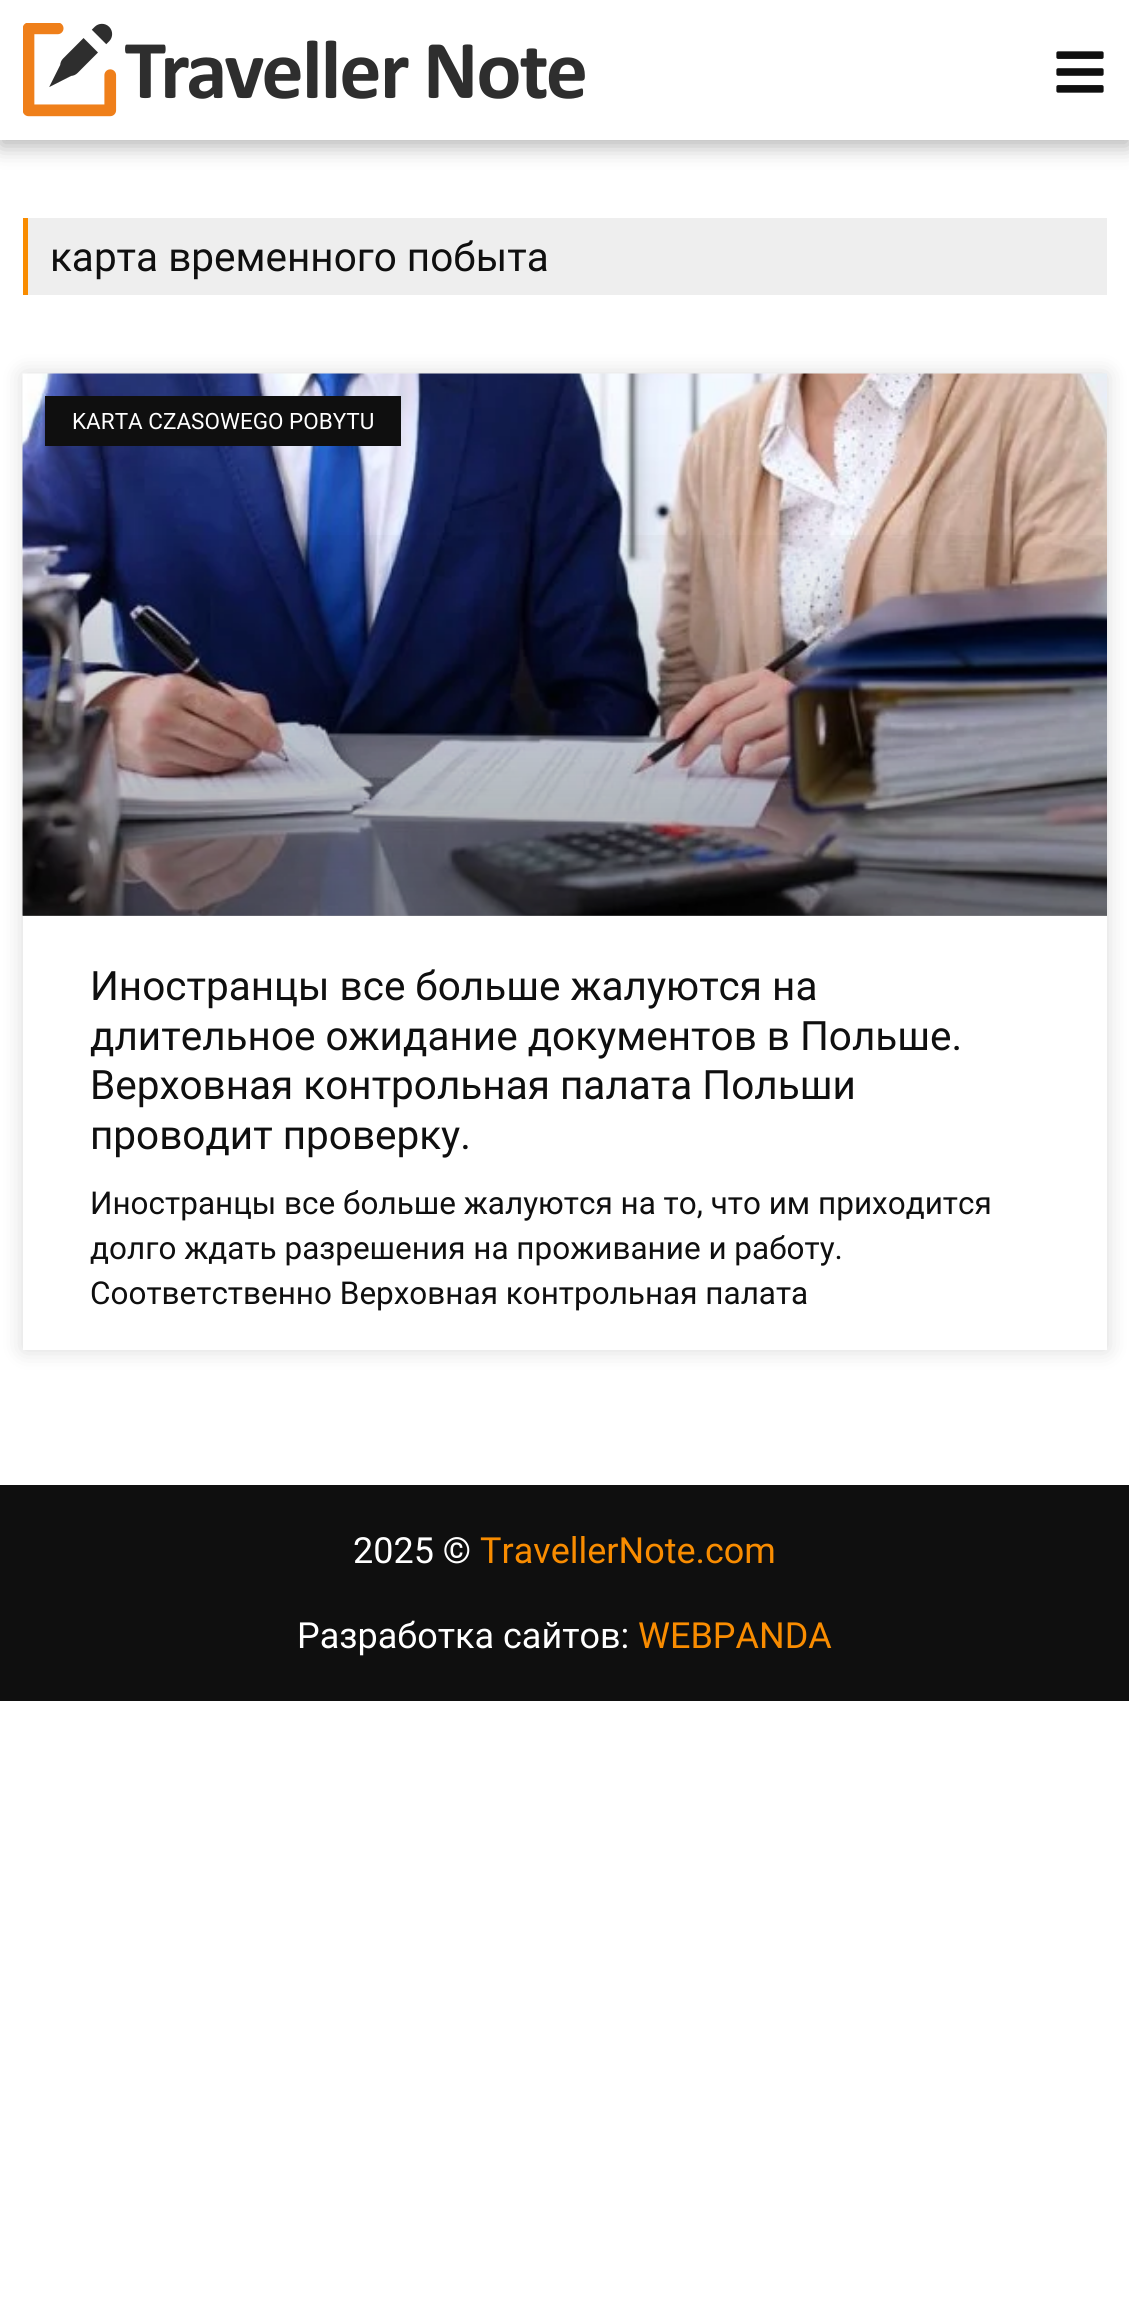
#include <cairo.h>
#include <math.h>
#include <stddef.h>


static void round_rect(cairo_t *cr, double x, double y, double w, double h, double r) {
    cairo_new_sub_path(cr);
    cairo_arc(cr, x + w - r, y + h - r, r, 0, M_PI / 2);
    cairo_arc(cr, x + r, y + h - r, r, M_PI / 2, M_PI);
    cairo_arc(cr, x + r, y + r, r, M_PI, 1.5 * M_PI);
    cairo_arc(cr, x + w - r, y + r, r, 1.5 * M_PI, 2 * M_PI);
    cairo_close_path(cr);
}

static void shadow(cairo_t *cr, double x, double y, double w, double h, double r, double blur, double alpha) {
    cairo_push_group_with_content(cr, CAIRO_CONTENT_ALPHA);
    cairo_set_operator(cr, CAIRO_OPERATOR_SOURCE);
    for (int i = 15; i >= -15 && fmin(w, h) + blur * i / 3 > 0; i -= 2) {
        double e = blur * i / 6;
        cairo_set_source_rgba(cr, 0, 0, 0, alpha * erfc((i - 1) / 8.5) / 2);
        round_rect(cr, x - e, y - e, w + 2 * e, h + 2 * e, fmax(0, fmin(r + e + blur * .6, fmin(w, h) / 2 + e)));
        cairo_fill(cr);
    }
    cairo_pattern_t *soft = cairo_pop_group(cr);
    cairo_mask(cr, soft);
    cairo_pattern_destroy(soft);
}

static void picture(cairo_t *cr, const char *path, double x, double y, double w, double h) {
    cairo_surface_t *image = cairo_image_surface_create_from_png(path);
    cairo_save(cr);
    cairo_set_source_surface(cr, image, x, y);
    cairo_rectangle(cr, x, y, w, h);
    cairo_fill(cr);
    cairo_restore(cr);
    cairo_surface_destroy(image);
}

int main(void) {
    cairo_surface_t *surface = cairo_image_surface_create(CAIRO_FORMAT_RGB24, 1129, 2314);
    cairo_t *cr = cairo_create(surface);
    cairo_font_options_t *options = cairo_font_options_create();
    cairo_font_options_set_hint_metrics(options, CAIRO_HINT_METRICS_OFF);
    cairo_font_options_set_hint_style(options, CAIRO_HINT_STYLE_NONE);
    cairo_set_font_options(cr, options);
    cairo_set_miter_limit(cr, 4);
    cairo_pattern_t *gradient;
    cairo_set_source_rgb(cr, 1, 1, 1);
    cairo_paint(cr);
    cairo_set_source_rgb(cr, 0, 0, 0);
    shadow(cr, 0, 7, 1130, 139, 0, 11, 0.3);
    cairo_set_source_rgb(cr, 1, 1, 1);
    cairo_rectangle(cr, 0, 0, 1129, 140);
    cairo_fill(cr);
    picture(cr, "img1.png", 23, 23, 562, 94);
    picture(cr, "img2.png", 1056, 51, 48, 42);
    cairo_set_source_rgb(cr, 0.933, 0.933, 0.933);
    cairo_rectangle(cr, 28, 218, 1079, 77);
    cairo_fill(cr);
    cairo_set_source_rgb(cr, 0.973, 0.549, 0);
    cairo_rectangle(cr, 23, 218, 5, 77);
    cairo_fill(cr);
    cairo_select_font_face(cr, "Roboto", CAIRO_FONT_SLANT_NORMAL, CAIRO_FONT_WEIGHT_NORMAL);
    cairo_set_font_size(cr, 40.5);
    cairo_set_source_rgb(cr, 0.059, 0.059, 0.059);
    cairo_move_to(cr, 50, 271);
    cairo_show_text(cr, "карта временного побыта");
    cairo_save(cr);
    cairo_set_fill_rule(cr, CAIRO_FILL_RULE_EVEN_ODD);
    cairo_new_path(cr);
    cairo_move_to(cr, 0, 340);
    cairo_line_to(cr, 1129, 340);
    cairo_line_to(cr, 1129, 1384);
    cairo_line_to(cr, 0, 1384);
    cairo_close_path(cr);
    cairo_move_to(cr, 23, 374);
    cairo_line_to(cr, 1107, 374);
    cairo_line_to(cr, 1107, 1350);
    cairo_line_to(cr, 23, 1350);
    cairo_close_path(cr);
    cairo_clip(cr);
    cairo_set_source_rgb(cr, 0, 0, 0);
    shadow(cr, 23, 374, 1084, 976, 0, 11, 0.15);
    cairo_restore(cr);
    picture(cr, "img3.png", 22, 373, 1085, 543);
    gradient = cairo_pattern_create_linear(565, 916, 565, 374);
    cairo_pattern_add_color_stop_rgba(gradient, 0, 0, 0, 0, 0.35);
    cairo_pattern_add_color_stop_rgba(gradient, 0.75, 0, 0, 0, 0);
    cairo_set_source(cr, gradient);
    cairo_pattern_destroy(gradient);
    cairo_rectangle(cr, 23, 535, 1084, 381);
    cairo_fill(cr);
    cairo_set_source_rgb(cr, 0.059, 0.059, 0.059);
    cairo_rectangle(cr, 45, 396, 356, 50);
    cairo_fill(cr);
    cairo_set_font_size(cr, 22.5);
    cairo_set_source_rgb(cr, 1, 1, 1);
    cairo_move_to(cr, 72, 429);
    cairo_show_text(cr, "KARTA CZASOWEGO POBYTU");
    cairo_set_font_size(cr, 40.5);
    cairo_set_source_rgb(cr, 0.059, 0.059, 0.059);
    cairo_move_to(cr, 90, 1000);
    cairo_show_text(cr, "Иностранцы все больше жалуются на");
    cairo_move_to(cr, 90, 1050);
    cairo_show_text(cr, "длительное ожидание документов в Польше.");
    cairo_move_to(cr, 90, 1099);
    cairo_show_text(cr, "Верховная контрольная палата Польши");
    cairo_move_to(cr, 90, 1149);
    cairo_show_text(cr, "проводит проверку.");
    cairo_set_font_size(cr, 31.5);
    cairo_move_to(cr, 90, 1214);
    cairo_show_text(cr, "Иностранцы все больше жалуются на то, что им приходится");
    cairo_move_to(cr, 90, 1259);
    cairo_show_text(cr, "долго ждать разрешения на проживание и работу.");
    cairo_move_to(cr, 90, 1304);
    cairo_show_text(cr, "Соответственно Верховная контрольная палата");
    cairo_rectangle(cr, 0, 1485, 1129, 216);
    cairo_fill(cr);
    cairo_set_font_size(cr, 36);
    cairo_set_source_rgb(cr, 1, 1, 1);
    cairo_move_to(cr, 353, 1563);
    cairo_show_text(cr, "2025 ©");
    cairo_set_source_rgb(cr, 0.973, 0.549, 0);
    cairo_move_to(cr, 480, 1563);
    cairo_show_text(cr, "TravellerNote.com");
    cairo_set_source_rgb(cr, 1, 1, 1);
    cairo_move_to(cr, 297, 1648);
    cairo_show_text(cr, "Разработка сайтов:");
    cairo_set_source_rgb(cr, 0.973, 0.549, 0);
    cairo_move_to(cr, 638, 1648);
    cairo_show_text(cr, "WEBPANDA");
    cairo_surface_write_to_png(surface, "page.png");
    cairo_font_options_destroy(options);
    cairo_destroy(cr);
    cairo_surface_destroy(surface);
    return 0;
}
